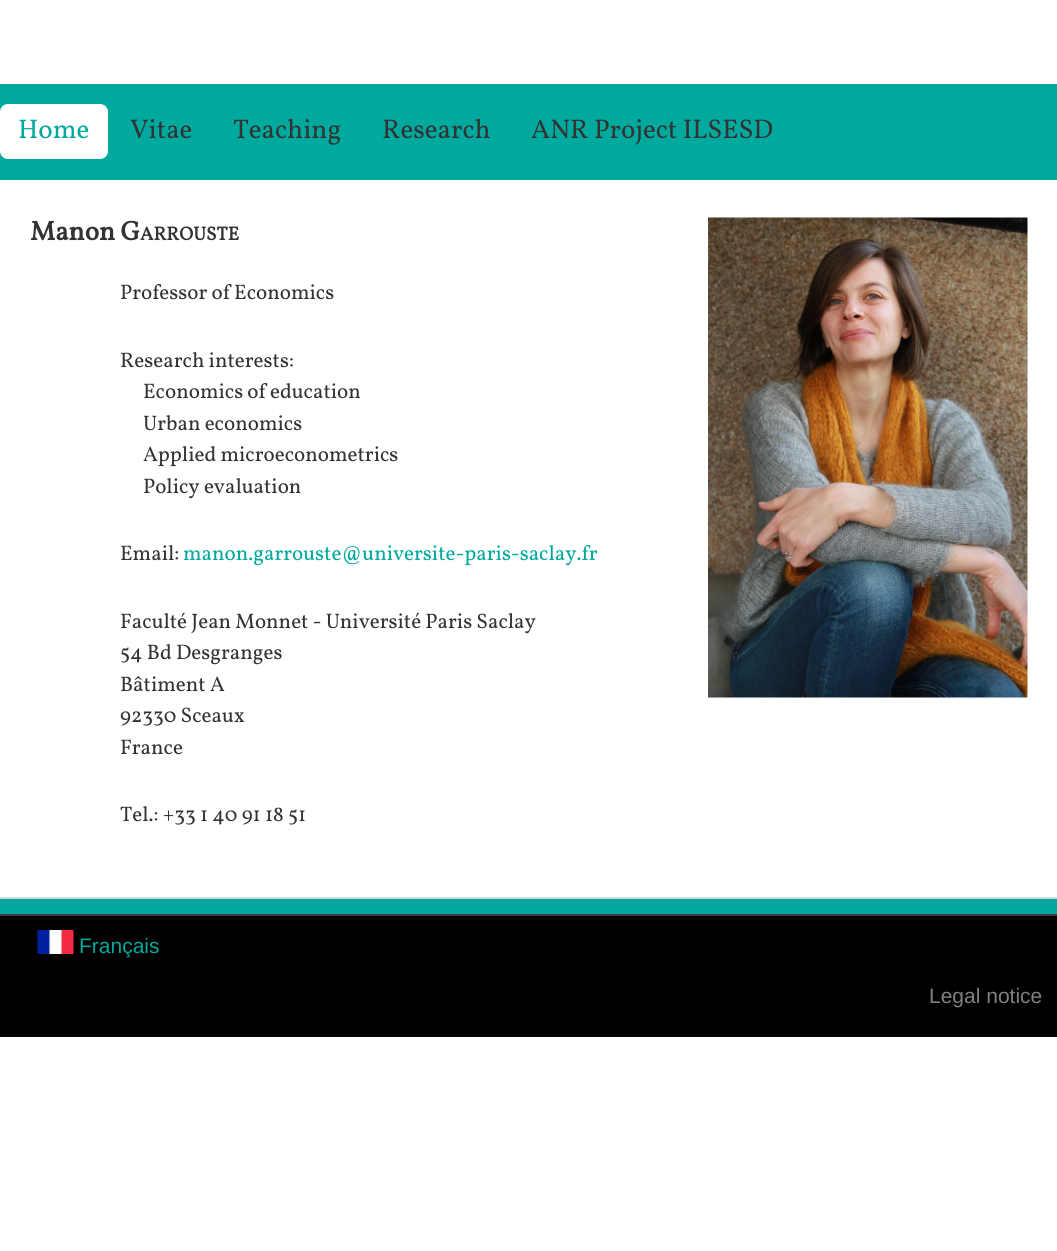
#include <cairo.h>
#include <math.h>
#include <stddef.h>


static void round_rect(cairo_t *cr, double x, double y, double w, double h, double r) {
    cairo_new_sub_path(cr);
    cairo_arc(cr, x + w - r, y + h - r, r, 0, M_PI / 2);
    cairo_arc(cr, x + r, y + h - r, r, M_PI / 2, M_PI);
    cairo_arc(cr, x + r, y + r, r, M_PI, 1.5 * M_PI);
    cairo_arc(cr, x + w - r, y + r, r, 1.5 * M_PI, 2 * M_PI);
    cairo_close_path(cr);
}

static void picture(cairo_t *cr, const char *path, double x, double y, double w, double h) {
    cairo_surface_t *image = cairo_image_surface_create_from_png(path);
    cairo_save(cr);
    cairo_set_source_surface(cr, image, x, y);
    cairo_rectangle(cr, x, y, w, h);
    cairo_fill(cr);
    cairo_restore(cr);
    cairo_surface_destroy(image);
}

int main(void) {
    cairo_surface_t *surface = cairo_image_surface_create(CAIRO_FORMAT_RGB24, 1057, 1251);
    cairo_t *cr = cairo_create(surface);
    cairo_font_options_t *options = cairo_font_options_create();
    cairo_font_options_set_hint_metrics(options, CAIRO_HINT_METRICS_OFF);
    cairo_font_options_set_hint_style(options, CAIRO_HINT_STYLE_NONE);
    cairo_set_font_options(cr, options);
    cairo_set_miter_limit(cr, 4);
    cairo_set_source_rgb(cr, 1, 1, 1);
    cairo_paint(cr);
    cairo_set_source_rgb(cr, 0, 0.663, 0.616);
    cairo_rectangle(cr, 0, 84, 1057, 96);
    cairo_fill(cr);
    cairo_set_source_rgb(cr, 1, 1, 1);
    round_rect(cr, 0, 104, 108, 55, 8);
    cairo_fill(cr);
    cairo_select_font_face(cr, "Vollkorn", CAIRO_FONT_SLANT_NORMAL, CAIRO_FONT_WEIGHT_NORMAL);
    cairo_set_font_size(cr, 27);
    cairo_set_source_rgb(cr, 0, 0.663, 0.616);
    cairo_move_to(cr, 18, 138);
    cairo_show_text(cr, "Home");
    cairo_set_source_rgb(cr, 0.2, 0.2, 0.2);
    cairo_move_to(cr, 130, 138);
    cairo_show_text(cr, "Vitae");
    cairo_move_to(cr, 233, 138);
    cairo_show_text(cr, "Teaching");
    cairo_move_to(cr, 382, 138);
    cairo_show_text(cr, "Research");
    cairo_move_to(cr, 531, 138);
    cairo_show_text(cr, "ANR Project ILSESD");
    cairo_select_font_face(cr, "Vollkorn", CAIRO_FONT_SLANT_NORMAL, CAIRO_FONT_WEIGHT_BOLD);
    cairo_move_to(cr, 30, 240);
    cairo_show_text(cr, "Manon G");
    cairo_set_font_size(cr, 19);
    cairo_move_to(cr, 140, 240);
    cairo_show_text(cr, "ARROUSTE");
    picture(cr, "img1.png", 708, 217, 320, 481);
    cairo_select_font_face(cr, "Vollkorn", CAIRO_FONT_SLANT_NORMAL, CAIRO_FONT_WEIGHT_NORMAL);
    cairo_set_font_size(cr, 21);
    cairo_move_to(cr, 120, 299);
    cairo_show_text(cr, "Professor of Economics");
    cairo_move_to(cr, 120, 367);
    cairo_show_text(cr, "Research interests:");
    cairo_move_to(cr, 143, 398);
    cairo_show_text(cr, "Economics of education");
    cairo_move_to(cr, 143, 430);
    cairo_show_text(cr, "Urban economics");
    cairo_move_to(cr, 143, 461);
    cairo_show_text(cr, "Applied microeconometrics");
    cairo_move_to(cr, 143, 493);
    cairo_show_text(cr, "Policy evaluation");
    cairo_move_to(cr, 120, 560);
    cairo_show_text(cr, "Email:");
    cairo_set_source_rgb(cr, 0, 0.663, 0.616);
    cairo_move_to(cr, 183, 560);
    cairo_show_text(cr, "manon.garrouste@universite-paris-saclay.fr");
    cairo_set_source_rgb(cr, 0.2, 0.2, 0.2);
    cairo_move_to(cr, 120, 628);
    cairo_show_text(cr, "Faculté Jean Monnet - Université Paris Saclay");
    cairo_move_to(cr, 120, 659);
    cairo_show_text(cr, "54 Bd Desgranges");
    cairo_move_to(cr, 120, 691);
    cairo_show_text(cr, "Bâtiment A");
    cairo_move_to(cr, 120, 722);
    cairo_show_text(cr, "92330 Sceaux");
    cairo_move_to(cr, 120, 754);
    cairo_show_text(cr, "France");
    cairo_move_to(cr, 120, 821);
    cairo_show_text(cr, "Tel.: +33 1 40 91 18 51");
    cairo_set_source_rgb(cr, 0, 0.663, 0.616);
    cairo_rectangle(cr, 0, 899, 1057, 15);
    cairo_fill(cr);
    cairo_set_source_rgb(cr, 0.812, 0.843, 0.859);
    cairo_rectangle(cr, 0, 897, 1057, 2);
    cairo_fill(cr);
    cairo_set_source_rgb(cr, 0, 0, 0);
    cairo_rectangle(cr, 0, 916, 1057, 121);
    cairo_fill(cr);
    cairo_set_source_rgb(cr, 0.231, 0.235, 0.239);
    cairo_rectangle(cr, 0, 914, 1057, 2);
    cairo_fill(cr);
    picture(cr, "img2.png", 37, 930, 37, 24);
    cairo_select_font_face(cr, "Liberation Sans", CAIRO_FONT_SLANT_NORMAL, CAIRO_FONT_WEIGHT_NORMAL);
    cairo_set_source_rgb(cr, 0, 0.663, 0.616);
    cairo_move_to(cr, 79, 953);
    cairo_show_text(cr, "Français");
    cairo_set_source_rgb(cr, 0.502, 0.502, 0.502);
    cairo_move_to(cr, 929, 1003);
    cairo_show_text(cr, "Legal notice");
    cairo_surface_write_to_png(surface, "page.png");
    cairo_font_options_destroy(options);
    cairo_destroy(cr);
    cairo_surface_destroy(surface);
    return 0;
}
